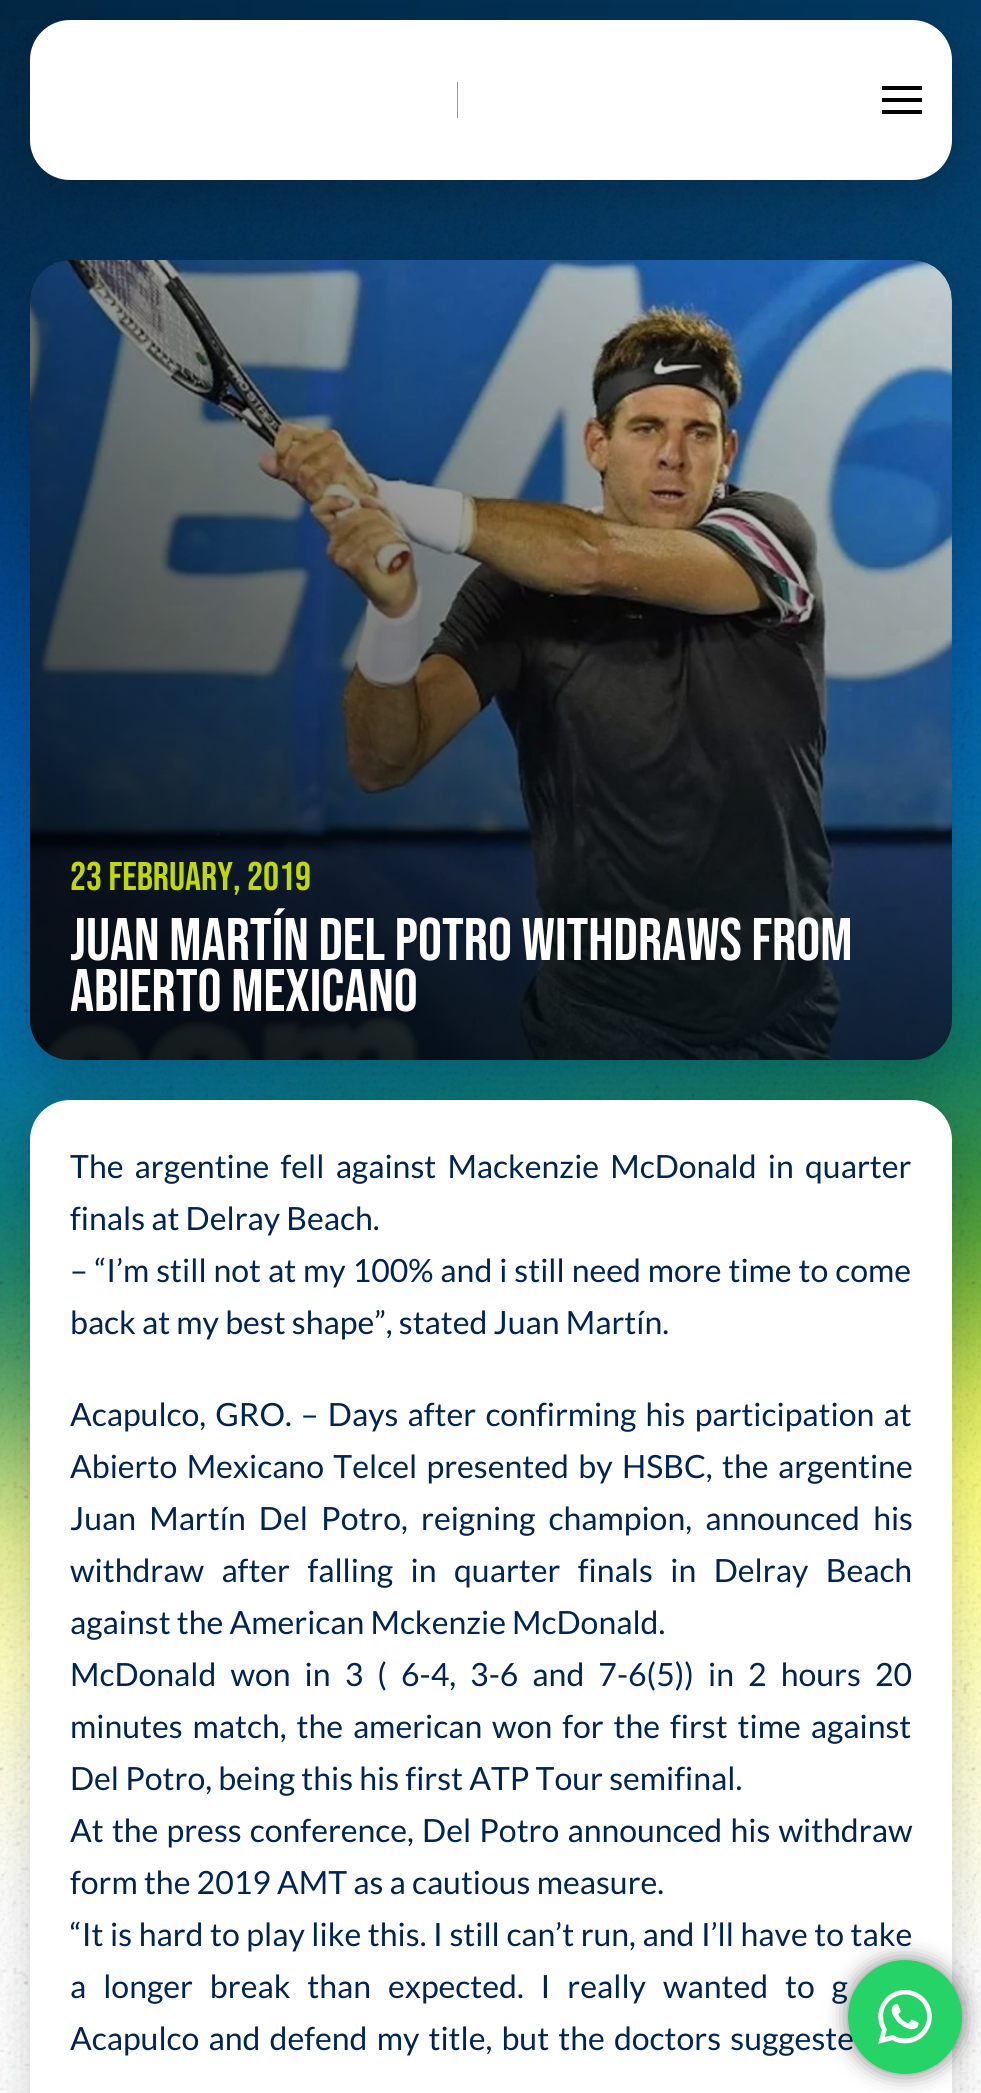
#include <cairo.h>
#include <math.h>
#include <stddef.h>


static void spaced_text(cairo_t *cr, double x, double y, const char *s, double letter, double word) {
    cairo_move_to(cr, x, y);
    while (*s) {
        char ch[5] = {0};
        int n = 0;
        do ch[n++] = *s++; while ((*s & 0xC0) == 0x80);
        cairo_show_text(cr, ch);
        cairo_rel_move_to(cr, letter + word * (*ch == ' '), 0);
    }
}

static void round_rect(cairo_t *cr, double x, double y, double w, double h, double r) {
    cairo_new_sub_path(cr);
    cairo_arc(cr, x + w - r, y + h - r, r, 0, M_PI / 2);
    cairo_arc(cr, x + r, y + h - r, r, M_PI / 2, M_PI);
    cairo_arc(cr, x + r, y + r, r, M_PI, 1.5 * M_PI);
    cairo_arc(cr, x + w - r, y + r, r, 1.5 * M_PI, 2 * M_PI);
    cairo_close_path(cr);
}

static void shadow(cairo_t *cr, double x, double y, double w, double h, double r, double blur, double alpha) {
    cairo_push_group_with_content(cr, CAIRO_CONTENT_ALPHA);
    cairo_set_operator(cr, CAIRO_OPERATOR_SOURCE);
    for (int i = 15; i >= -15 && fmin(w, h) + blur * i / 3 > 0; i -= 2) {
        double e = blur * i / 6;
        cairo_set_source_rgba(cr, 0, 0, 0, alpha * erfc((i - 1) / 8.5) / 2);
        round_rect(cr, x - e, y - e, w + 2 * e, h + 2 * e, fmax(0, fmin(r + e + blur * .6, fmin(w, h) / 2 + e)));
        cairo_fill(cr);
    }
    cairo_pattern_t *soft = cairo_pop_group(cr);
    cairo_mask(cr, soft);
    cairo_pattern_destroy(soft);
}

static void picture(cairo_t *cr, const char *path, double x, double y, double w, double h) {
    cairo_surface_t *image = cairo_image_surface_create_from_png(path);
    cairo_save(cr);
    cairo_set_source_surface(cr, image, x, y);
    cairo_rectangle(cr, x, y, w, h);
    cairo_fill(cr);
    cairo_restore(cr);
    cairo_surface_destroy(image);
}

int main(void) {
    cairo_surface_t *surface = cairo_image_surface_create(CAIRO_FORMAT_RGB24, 981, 2093);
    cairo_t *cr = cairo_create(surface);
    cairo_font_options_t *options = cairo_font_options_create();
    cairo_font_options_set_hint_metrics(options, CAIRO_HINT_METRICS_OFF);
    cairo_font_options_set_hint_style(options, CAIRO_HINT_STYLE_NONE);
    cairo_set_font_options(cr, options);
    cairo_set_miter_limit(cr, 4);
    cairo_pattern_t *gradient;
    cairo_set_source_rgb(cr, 1, 1, 1);
    cairo_paint(cr);
    picture(cr, "img1.png", 0, 0, 981, 1945);
    picture(cr, "img2.png", 0, 20, 981, 2073);
    cairo_set_source_rgb(cr, 0, 0, 0);
    shadow(cr, 30, 32, 922, 160, 40, 20, 0.16);
    cairo_set_source_rgb(cr, 1, 1, 1);
    round_rect(cr, 30, 20, 922, 160, 40);
    cairo_fill(cr);
    cairo_set_source_rgb(cr, 0.6, 0.6, 0.6);
    cairo_rectangle(cr, 457, 82, 1, 36);
    cairo_fill(cr);
    cairo_set_source_rgb(cr, 0, 0, 0);
    cairo_rectangle(cr, 882, 86, 40, 4);
    cairo_fill(cr);
    cairo_rectangle(cr, 882, 98, 40, 4);
    cairo_fill(cr);
    cairo_rectangle(cr, 882, 110, 40, 4);
    cairo_fill(cr);
    cairo_set_source_rgb(cr, 0, 0, 0);
    shadow(cr, 30, 288, 922, 800, 40, 25, 0.16);
    picture(cr, "img3.png", 30, 260, 922, 800);
    gradient = cairo_pattern_create_linear(831, 175, 151, 1145);
    cairo_pattern_add_color_stop_rgba(gradient, 0, 0, 0, 0, 0);
    cairo_pattern_add_color_stop_rgba(gradient, 0.85, 0, 0, 0, 0.8);
    cairo_set_source(cr, gradient);
    cairo_pattern_destroy(gradient);
    round_rect(cr, 30, 260, 922, 800, 40);
    cairo_fill(cr);
    cairo_select_font_face(cr, "Bebas Neue", CAIRO_FONT_SLANT_NORMAL, CAIRO_FONT_WEIGHT_NORMAL);
    cairo_set_font_size(cr, 40);
    cairo_set_source_rgb(cr, 0.753, 0.851, 0.016);
    cairo_move_to(cr, 70, 890);
    cairo_show_text(cr, "23 February, 2019");
    cairo_set_font_size(cr, 60);
    cairo_set_source_rgb(cr, 1, 1, 1);
    cairo_move_to(cr, 70, 960);
    cairo_show_text(cr, "JUAN MARTÍN DEL POTRO WITHDRAWS FROM");
    cairo_move_to(cr, 70, 1011);
    cairo_show_text(cr, "ABIERTO MEXICANO");
    cairo_set_source_rgb(cr, 0, 0, 0);
    shadow(cr, 30, 1112, 922, 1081, 40, 20, 0.16);
    cairo_set_source_rgb(cr, 1, 1, 1);
    round_rect(cr, 30, 1100, 922, 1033, 40);
    cairo_fill(cr);
    cairo_select_font_face(cr, "Lato", CAIRO_FONT_SLANT_NORMAL, CAIRO_FONT_WEIGHT_NORMAL);
    cairo_set_font_size(cr, 32);
    cairo_set_source_rgb(cr, 0, 0.145, 0.329);
    spaced_text(cr, 70, 1178, "The argentine fell against Mackenzie McDonald in quarter", 0, 5);
    cairo_move_to(cr, 70, 1230);
    cairo_show_text(cr, "finals at Delray Beach.");
    spaced_text(cr, 70, 1282, "– “I’m still not at my 100% and i still need more time to come", 0, 0.75);
    cairo_move_to(cr, 70, 1334);
    cairo_show_text(cr, "back at my best shape”, stated Juan Martín.");
    spaced_text(cr, 70, 1426, "Acapulco, GRO. – Days after confirming his participation at", 0, 3);
    spaced_text(cr, 70, 1478, "Abierto Mexicano Telcel presented by HSBC, the argentine", 0, 3.25);
    spaced_text(cr, 70, 1530, "Juan Martín Del Potro, reigning champion, announced his", 0, 7);
    spaced_text(cr, 70, 1582, "withdraw after falling in quarter finals in Delray Beach", 0, 11.25);
    cairo_move_to(cr, 70, 1634);
    cairo_show_text(cr, "against the American Mckenzie McDonald.");
    spaced_text(cr, 70, 1686, "McDonald won in 3 ( 6-4, 3-6 and 7-6(5)) in 2 hours 20", 0, 7.9);
    spaced_text(cr, 70, 1738, "minutes match, the american won for the first time against", 0, 3.75);
    cairo_move_to(cr, 70, 1790);
    cairo_show_text(cr, "Del Potro, being this his first ATP Tour semifinal.");
    spaced_text(cr, 70, 1842, "At the press conference, Del Potro announced his withdraw", 0, 2);
    cairo_move_to(cr, 70, 1894);
    cairo_show_text(cr, "form the 2019 AMT as a cautious measure.");
    spaced_text(cr, 70, 1946, "“It is hard to play like this. I still can’t run, and I’ll have to take", 0, 0.4);
    spaced_text(cr, 70, 1998, "a longer break than expected. I really wanted to g", 0, 10.75);
    spaced_text(cr, 70, 2050, "Acapulco and defend my title, but the doctors suggeste", 0, 3);
    cairo_set_source_rgb(cr, 0, 0, 0);
    shadow(cr, 848, 1960, 114, 114, 57, 11, 0.5);
    cairo_set_source_rgb(cr, 0.145, 0.827, 0.4);
    cairo_arc(cr, 905, 2017, 57, 0, 2 * M_PI);
    cairo_fill(cr);
    picture(cr, "img4.png", 878, 1990, 54, 54);
    cairo_surface_write_to_png(surface, "page.png");
    cairo_font_options_destroy(options);
    cairo_destroy(cr);
    cairo_surface_destroy(surface);
    return 0;
}
